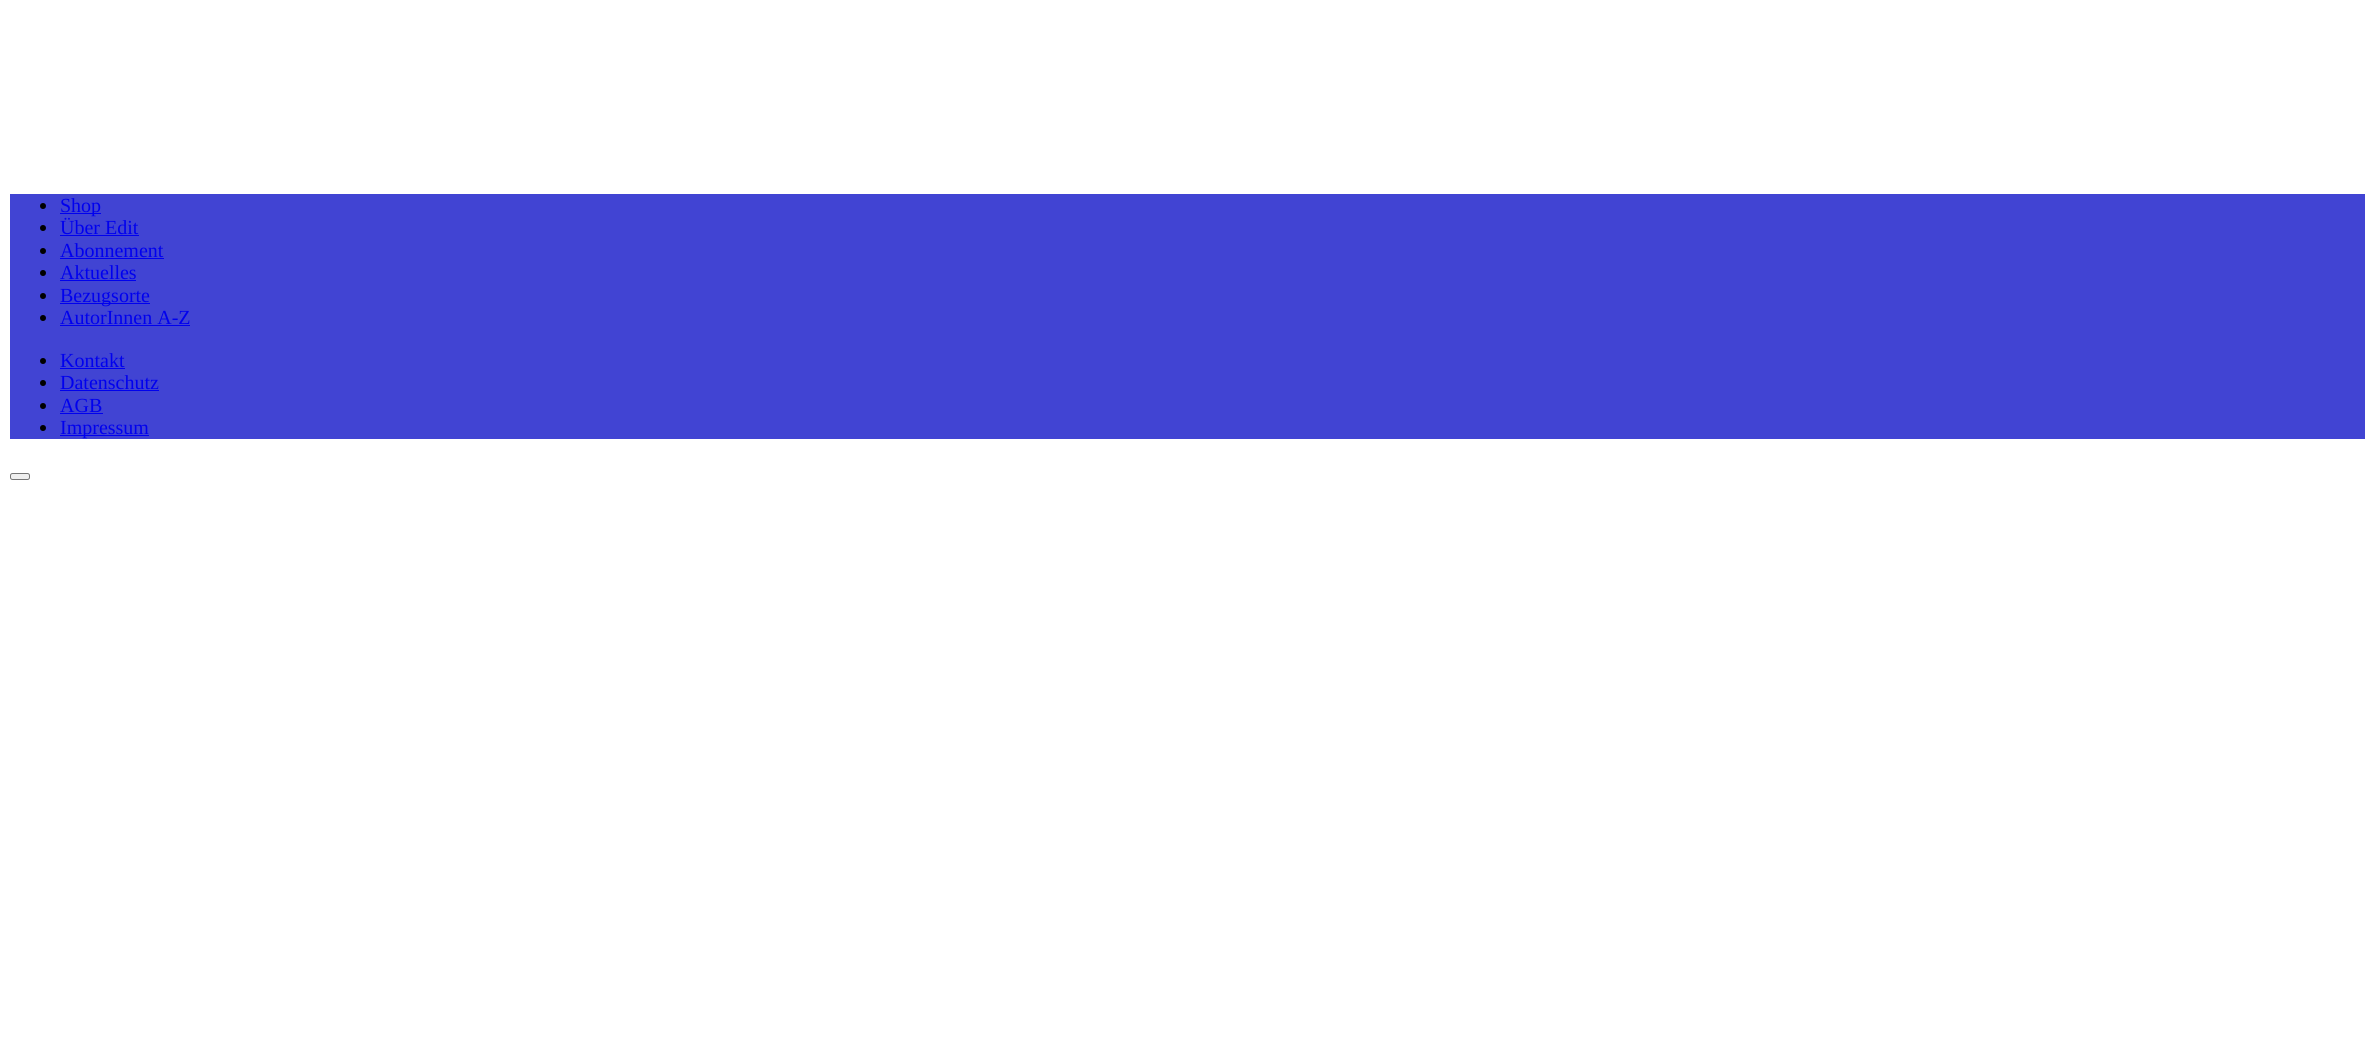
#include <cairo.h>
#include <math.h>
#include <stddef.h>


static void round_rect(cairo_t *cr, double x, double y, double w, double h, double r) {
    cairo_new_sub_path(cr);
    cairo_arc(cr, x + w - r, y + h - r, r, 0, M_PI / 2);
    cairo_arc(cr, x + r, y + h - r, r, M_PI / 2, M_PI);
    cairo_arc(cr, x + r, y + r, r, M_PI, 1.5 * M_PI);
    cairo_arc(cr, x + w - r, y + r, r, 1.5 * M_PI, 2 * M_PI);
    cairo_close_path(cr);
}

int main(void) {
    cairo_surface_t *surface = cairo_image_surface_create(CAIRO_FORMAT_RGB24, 2375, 1049);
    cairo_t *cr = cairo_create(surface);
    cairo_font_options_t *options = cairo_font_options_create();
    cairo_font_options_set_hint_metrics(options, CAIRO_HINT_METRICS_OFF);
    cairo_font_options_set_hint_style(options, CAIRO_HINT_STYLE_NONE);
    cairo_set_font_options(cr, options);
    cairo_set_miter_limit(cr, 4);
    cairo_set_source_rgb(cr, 1, 1, 1);
    cairo_paint(cr);
    cairo_set_source_rgb(cr, 0.255, 0.267, 0.827);
    cairo_rectangle(cr, 10, 194, 2355, 245);
    cairo_fill(cr);
    cairo_set_source_rgb(cr, 0, 0, 0);
    cairo_arc(cr, 43, 206, 3, 0, 2 * M_PI);
    cairo_fill(cr);
    cairo_set_source_rgb(cr, 0, 0, 0.933);
    cairo_rectangle(cr, 60, 213, 41, 1);
    cairo_fill(cr);
    cairo_select_font_face(cr, "Liberation Serif", CAIRO_FONT_SLANT_NORMAL, CAIRO_FONT_WEIGHT_NORMAL);
    cairo_set_font_size(cr, 20);
    cairo_move_to(cr, 60, 212);
    cairo_show_text(cr, "Shop");
    cairo_set_source_rgb(cr, 0, 0, 0);
    cairo_new_path(cr);
    cairo_arc(cr, 43, 228, 3, 0, 2 * M_PI);
    cairo_fill(cr);
    cairo_set_source_rgb(cr, 0, 0, 0.933);
    cairo_move_to(cr, 60, 234);
    cairo_show_text(cr, "Über Edit");
    cairo_rectangle(cr, 60, 235, 79, 1);
    cairo_fill(cr);
    cairo_set_source_rgb(cr, 0, 0, 0);
    cairo_arc(cr, 43, 251, 3, 0, 2 * M_PI);
    cairo_fill(cr);
    cairo_set_source_rgb(cr, 0, 0, 0.933);
    cairo_move_to(cr, 60, 257);
    cairo_show_text(cr, "Abonnement");
    cairo_rectangle(cr, 60, 258, 104, 1);
    cairo_fill(cr);
    cairo_set_source_rgb(cr, 0, 0, 0);
    cairo_arc(cr, 43, 273, 3, 0, 2 * M_PI);
    cairo_fill(cr);
    cairo_set_source_rgb(cr, 0, 0, 0.933);
    cairo_move_to(cr, 60, 279);
    cairo_show_text(cr, "Aktuelles");
    cairo_rectangle(cr, 60, 280, 76, 1);
    cairo_fill(cr);
    cairo_set_source_rgb(cr, 0, 0, 0);
    cairo_arc(cr, 43, 296, 3, 0, 2 * M_PI);
    cairo_fill(cr);
    cairo_set_source_rgb(cr, 0, 0, 0.933);
    cairo_rectangle(cr, 60, 303, 90, 1);
    cairo_fill(cr);
    cairo_move_to(cr, 60, 302);
    cairo_show_text(cr, "Bezugsorte");
    cairo_set_source_rgb(cr, 0, 0, 0);
    cairo_new_path(cr);
    cairo_arc(cr, 43, 318, 3, 0, 2 * M_PI);
    cairo_fill(cr);
    cairo_set_source_rgb(cr, 0, 0, 0.933);
    cairo_move_to(cr, 60, 324);
    cairo_show_text(cr, "AutorInnen A-Z");
    cairo_rectangle(cr, 60, 325, 130, 1);
    cairo_fill(cr);
    cairo_set_source_rgb(cr, 0, 0, 0);
    cairo_arc(cr, 43, 361, 3, 0, 2 * M_PI);
    cairo_fill(cr);
    cairo_set_source_rgb(cr, 0, 0, 0.933);
    cairo_move_to(cr, 60, 367);
    cairo_show_text(cr, "Kontakt");
    cairo_rectangle(cr, 60, 368, 65, 1);
    cairo_fill(cr);
    cairo_set_source_rgb(cr, 0, 0, 0);
    cairo_arc(cr, 43, 383, 3, 0, 2 * M_PI);
    cairo_fill(cr);
    cairo_set_source_rgb(cr, 0, 0, 0.933);
    cairo_move_to(cr, 60, 389);
    cairo_show_text(cr, "Datenschutz");
    cairo_rectangle(cr, 60, 390, 99, 1);
    cairo_fill(cr);
    cairo_set_source_rgb(cr, 0, 0, 0);
    cairo_arc(cr, 43, 406, 3, 0, 2 * M_PI);
    cairo_fill(cr);
    cairo_set_source_rgb(cr, 0, 0, 0.933);
    cairo_move_to(cr, 60, 412);
    cairo_show_text(cr, "AGB");
    cairo_rectangle(cr, 60, 413, 43, 1);
    cairo_fill(cr);
    cairo_set_source_rgb(cr, 0, 0, 0);
    cairo_arc(cr, 43, 428, 3, 0, 2 * M_PI);
    cairo_fill(cr);
    cairo_set_source_rgb(cr, 0, 0, 0.933);
    cairo_rectangle(cr, 60, 435, 89, 1);
    cairo_fill(cr);
    cairo_move_to(cr, 60, 434);
    cairo_show_text(cr, "Impressum");
    cairo_set_source_rgb(cr, 0.937, 0.937, 0.937);
    round_rect(cr, 10.5, 473.5, 19, 6, 2);
    cairo_fill_preserve(cr);
    cairo_set_source_rgb(cr, 0.463, 0.463, 0.463);
    cairo_set_line_width(cr, 1);
    cairo_stroke(cr);
    cairo_surface_write_to_png(surface, "page.png");
    cairo_font_options_destroy(options);
    cairo_destroy(cr);
    cairo_surface_destroy(surface);
    return 0;
}
